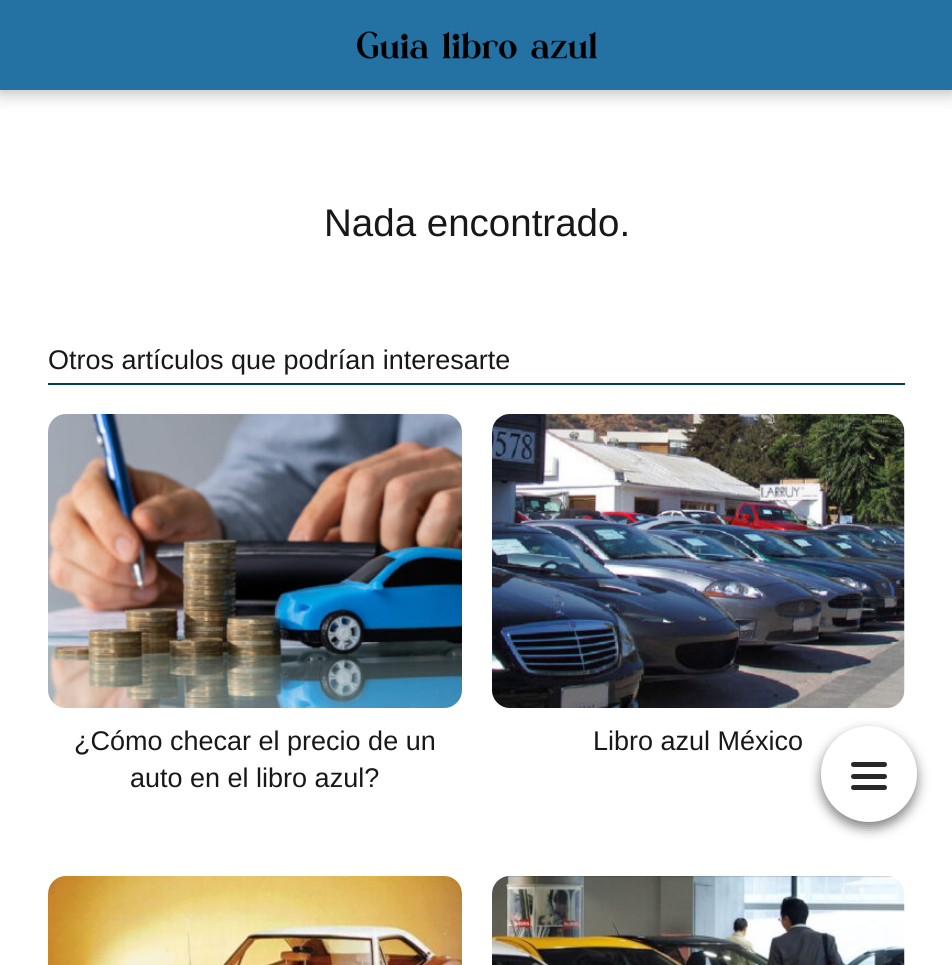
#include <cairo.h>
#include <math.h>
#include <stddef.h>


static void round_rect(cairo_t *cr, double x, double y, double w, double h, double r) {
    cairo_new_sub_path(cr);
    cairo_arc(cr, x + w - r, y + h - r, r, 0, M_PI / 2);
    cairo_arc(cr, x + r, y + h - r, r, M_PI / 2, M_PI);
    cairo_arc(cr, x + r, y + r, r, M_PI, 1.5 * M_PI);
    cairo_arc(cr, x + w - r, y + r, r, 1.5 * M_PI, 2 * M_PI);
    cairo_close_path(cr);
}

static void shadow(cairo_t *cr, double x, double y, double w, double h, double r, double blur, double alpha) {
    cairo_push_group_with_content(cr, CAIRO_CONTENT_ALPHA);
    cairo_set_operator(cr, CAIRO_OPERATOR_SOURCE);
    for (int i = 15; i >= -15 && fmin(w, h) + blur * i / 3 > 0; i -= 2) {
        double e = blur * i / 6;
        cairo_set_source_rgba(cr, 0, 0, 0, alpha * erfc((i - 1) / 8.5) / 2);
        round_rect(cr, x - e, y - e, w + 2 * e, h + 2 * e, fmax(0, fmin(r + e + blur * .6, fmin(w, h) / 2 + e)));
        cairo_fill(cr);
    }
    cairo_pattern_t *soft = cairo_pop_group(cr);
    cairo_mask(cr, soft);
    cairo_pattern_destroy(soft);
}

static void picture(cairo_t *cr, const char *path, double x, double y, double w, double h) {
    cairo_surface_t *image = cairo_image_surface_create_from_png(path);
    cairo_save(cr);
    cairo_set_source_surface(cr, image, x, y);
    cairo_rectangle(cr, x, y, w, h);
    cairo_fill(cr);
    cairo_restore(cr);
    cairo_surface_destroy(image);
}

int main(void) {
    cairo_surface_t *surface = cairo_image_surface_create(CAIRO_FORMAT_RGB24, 952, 965);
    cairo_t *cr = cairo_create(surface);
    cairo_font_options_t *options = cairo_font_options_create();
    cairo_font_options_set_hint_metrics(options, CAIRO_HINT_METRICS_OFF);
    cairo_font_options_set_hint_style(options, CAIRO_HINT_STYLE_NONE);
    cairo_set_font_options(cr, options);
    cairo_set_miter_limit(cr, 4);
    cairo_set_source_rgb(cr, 1, 1, 1);
    cairo_paint(cr);
    cairo_set_source_rgb(cr, 0, 0, 0);
    shadow(cr, 0, 2, 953, 90, 0, 9, 0.3);
    cairo_set_source_rgb(cr, 0.141, 0.443, 0.639);
    cairo_rectangle(cr, 0, 0, 952, 90);
    cairo_fill(cr);
    picture(cr, "img1.png", 357, 31, 240, 28);
    cairo_select_font_face(cr, "Liberation Sans", CAIRO_FONT_SLANT_NORMAL, CAIRO_FONT_WEIGHT_NORMAL);
    cairo_set_font_size(cr, 38.5);
    cairo_set_source_rgb(cr, 0.094, 0.094, 0.094);
    cairo_move_to(cr, 324, 236);
    cairo_show_text(cr, "Nada encontrado.");
    cairo_set_source_rgb(cr, 0, 0.243, 0.333);
    cairo_rectangle(cr, 48, 383, 857, 2);
    cairo_fill(cr);
    cairo_set_font_size(cr, 27);
    cairo_set_source_rgb(cr, 0.094, 0.094, 0.094);
    cairo_move_to(cr, 48, 369);
    cairo_show_text(cr, "Otros artículos que podrían interesarte");
    picture(cr, "img2.png", 48, 414, 414, 294);
    cairo_move_to(cr, 74, 750);
    cairo_show_text(cr, "¿Cómo checar el precio de un");
    cairo_move_to(cr, 130, 787);
    cairo_show_text(cr, "auto en el libro azul?");
    picture(cr, "img3.png", 492, 414, 413, 294);
    cairo_move_to(cr, 593, 750);
    cairo_show_text(cr, "Libro azul México");
    picture(cr, "img4.png", 48, 876, 414, 89);
    picture(cr, "img5.png", 492, 876, 413, 89);
    cairo_set_source_rgb(cr, 0, 0, 0);
    shadow(cr, 821, 732, 96, 96, 48, 6, 0.5);
    cairo_set_source_rgb(cr, 1, 1, 1);
    cairo_arc(cr, 869, 774, 48, 0, 2 * M_PI);
    cairo_fill(cr);
    cairo_set_source_rgb(cr, 0.157, 0.157, 0.157);
    round_rect(cr, 851, 762, 36, 5, 2.5);
    cairo_fill(cr);
    round_rect(cr, 851, 774, 36, 5, 2.5);
    cairo_fill(cr);
    round_rect(cr, 851, 785, 36, 5, 2.5);
    cairo_fill(cr);
    cairo_surface_write_to_png(surface, "page.png");
    cairo_font_options_destroy(options);
    cairo_destroy(cr);
    cairo_surface_destroy(surface);
    return 0;
}
